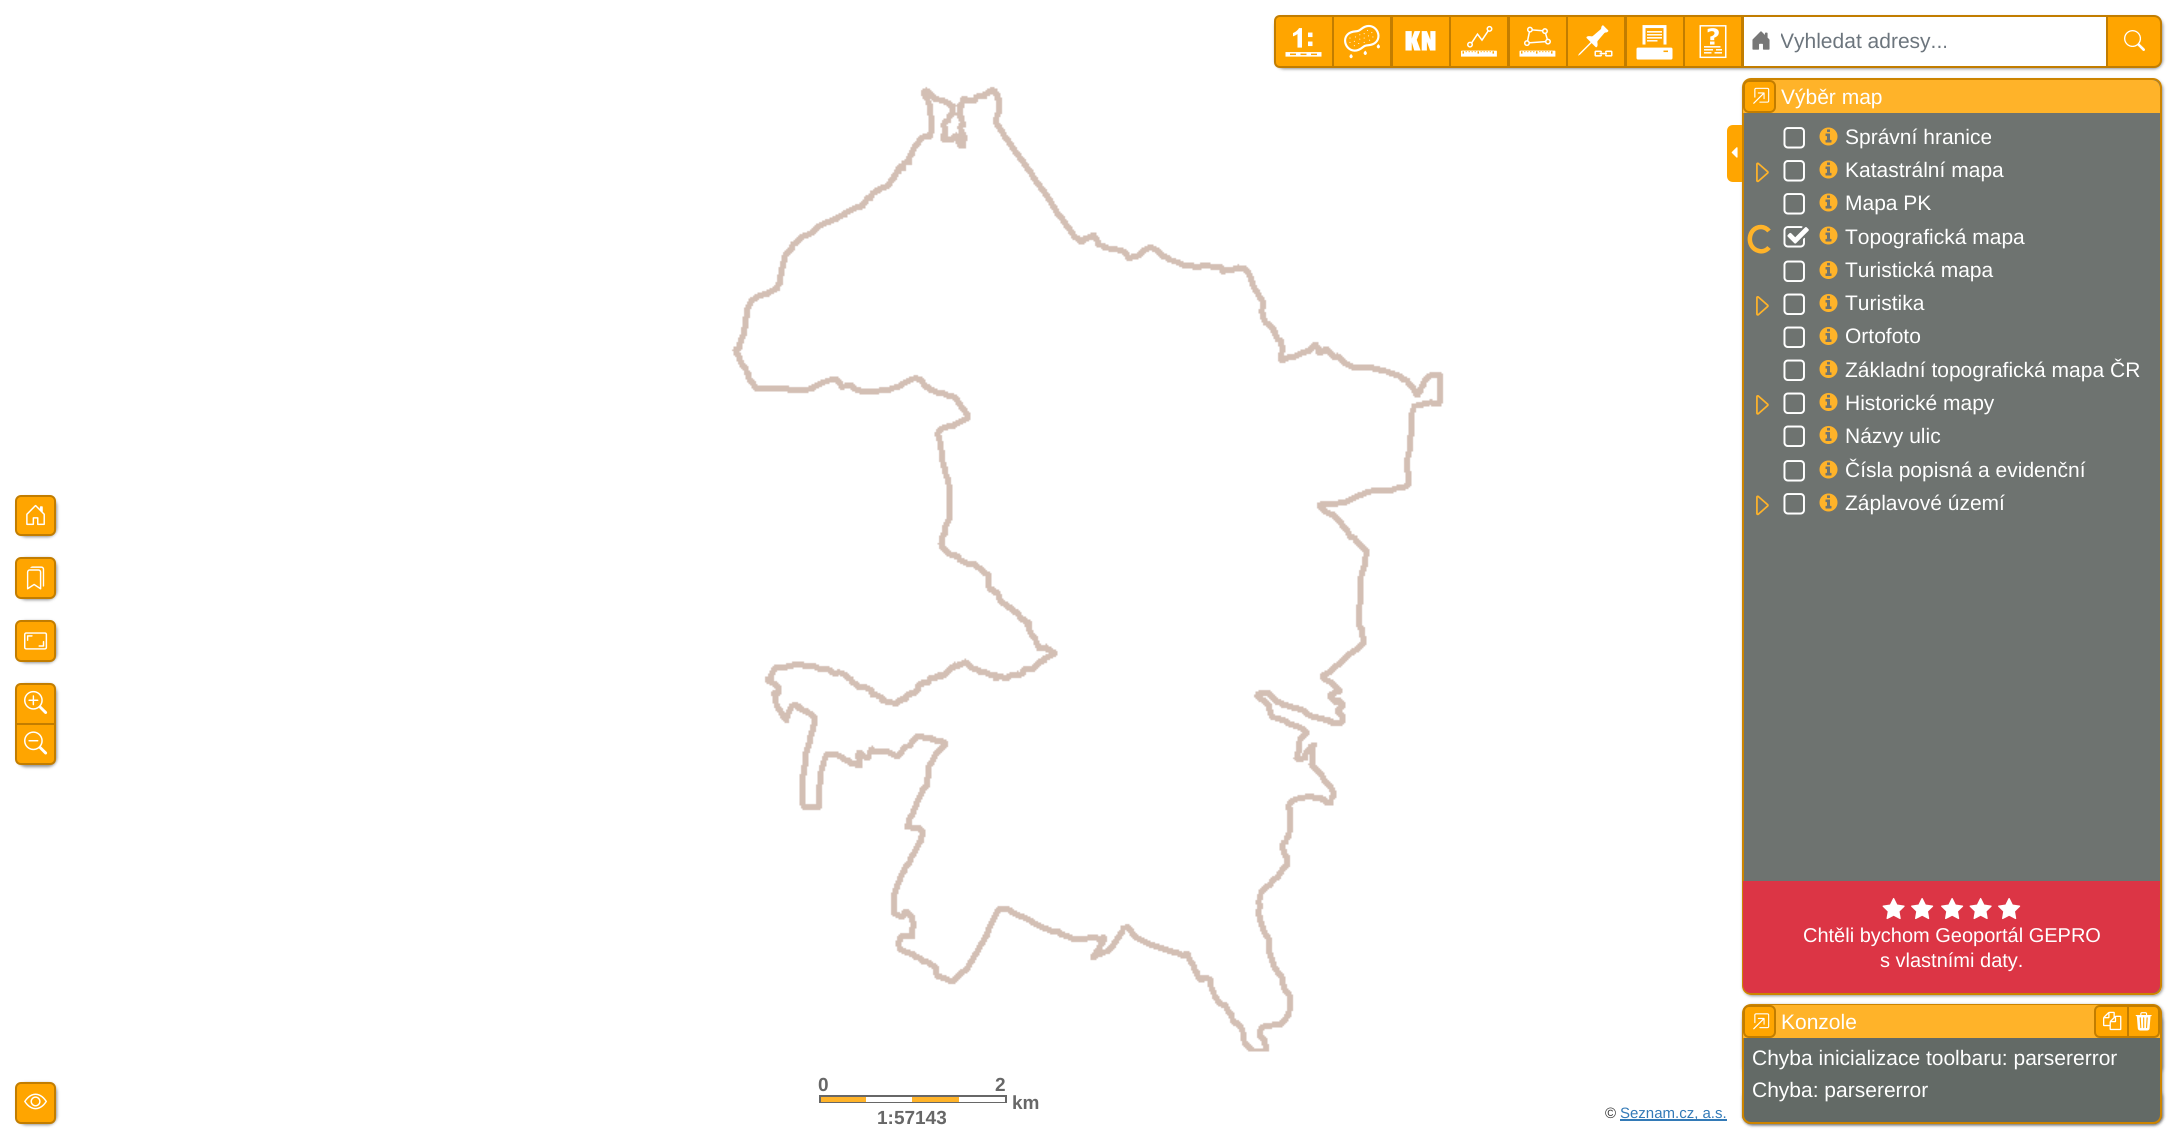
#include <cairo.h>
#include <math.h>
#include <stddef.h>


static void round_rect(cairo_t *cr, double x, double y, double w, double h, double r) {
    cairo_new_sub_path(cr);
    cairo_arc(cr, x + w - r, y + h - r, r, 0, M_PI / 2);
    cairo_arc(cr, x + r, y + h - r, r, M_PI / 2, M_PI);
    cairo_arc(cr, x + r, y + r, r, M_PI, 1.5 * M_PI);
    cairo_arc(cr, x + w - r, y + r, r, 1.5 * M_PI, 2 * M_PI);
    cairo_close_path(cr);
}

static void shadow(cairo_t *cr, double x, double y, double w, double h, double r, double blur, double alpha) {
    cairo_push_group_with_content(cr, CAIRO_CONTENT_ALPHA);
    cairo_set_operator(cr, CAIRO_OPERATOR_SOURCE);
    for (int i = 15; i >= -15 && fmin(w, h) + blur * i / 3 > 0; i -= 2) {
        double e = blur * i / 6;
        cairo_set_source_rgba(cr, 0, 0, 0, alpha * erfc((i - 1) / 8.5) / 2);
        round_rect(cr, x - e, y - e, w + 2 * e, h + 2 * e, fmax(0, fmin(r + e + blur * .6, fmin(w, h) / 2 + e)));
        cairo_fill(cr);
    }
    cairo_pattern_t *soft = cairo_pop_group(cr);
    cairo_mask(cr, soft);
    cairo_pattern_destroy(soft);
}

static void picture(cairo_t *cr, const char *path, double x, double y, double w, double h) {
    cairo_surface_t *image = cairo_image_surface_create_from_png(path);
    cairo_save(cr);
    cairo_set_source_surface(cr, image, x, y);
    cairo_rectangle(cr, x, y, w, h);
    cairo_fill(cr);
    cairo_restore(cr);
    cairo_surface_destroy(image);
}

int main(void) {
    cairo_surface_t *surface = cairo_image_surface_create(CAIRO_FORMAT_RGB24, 2176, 1138);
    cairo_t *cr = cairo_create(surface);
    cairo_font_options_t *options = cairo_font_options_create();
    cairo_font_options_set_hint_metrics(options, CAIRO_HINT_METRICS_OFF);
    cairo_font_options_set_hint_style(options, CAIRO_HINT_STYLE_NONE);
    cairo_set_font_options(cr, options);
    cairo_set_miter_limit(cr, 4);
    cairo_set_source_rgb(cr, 1, 1, 1);
    cairo_paint(cr);
    cairo_set_source_rgb(cr, 0.392, 0.392, 0.392);
    shadow(cr, 1275, 17, 888, 52, 9, 1.5, 0.7);
    cairo_set_source_rgb(cr, 1, 0.647, 0);
    cairo_new_path(cr);
    cairo_move_to(cr, 1280, 16);
    cairo_line_to(cr, 1333, 16);
    cairo_line_to(cr, 1333, 67);
    cairo_line_to(cr, 1280, 67);
    cairo_curve_to(cr, 1277, 67, 1275, 65, 1275, 62);
    cairo_line_to(cr, 1275, 21);
    cairo_curve_to(cr, 1275, 18, 1277, 16, 1280, 16);
    cairo_close_path(cr);
    cairo_fill_preserve(cr);
    cairo_set_source_rgb(cr, 0.761, 0.49, 0);
    cairo_stroke(cr);
    picture(cr, "img1.png", 1285, 28, 37, 29);
    cairo_set_source_rgb(cr, 1, 0.647, 0);
    cairo_rectangle(cr, 1333, 16, 58, 51);
    cairo_fill_preserve(cr);
    cairo_set_source_rgb(cr, 0.761, 0.49, 0);
    cairo_stroke(cr);
    picture(cr, "img2.png", 1344, 24, 36, 35);
    cairo_set_source_rgb(cr, 1, 0.647, 0);
    cairo_rectangle(cr, 1392, 16, 58, 51);
    cairo_fill_preserve(cr);
    cairo_set_source_rgb(cr, 0.761, 0.49, 0);
    cairo_stroke(cr);
    picture(cr, "img3.png", 1405, 31, 31, 20);
    cairo_set_source_rgb(cr, 1, 0.647, 0);
    cairo_rectangle(cr, 1450, 16, 58, 51);
    cairo_fill_preserve(cr);
    cairo_set_source_rgb(cr, 0.761, 0.49, 0);
    cairo_stroke(cr);
    picture(cr, "img4.png", 1461, 25, 36, 32);
    cairo_set_source_rgb(cr, 1, 0.647, 0);
    cairo_rectangle(cr, 1509, 16, 58, 51);
    cairo_fill_preserve(cr);
    cairo_set_source_rgb(cr, 0.761, 0.49, 0);
    cairo_stroke(cr);
    picture(cr, "img5.png", 1519, 26, 37, 31);
    cairo_set_source_rgb(cr, 1, 0.647, 0);
    cairo_rectangle(cr, 1567, 16, 58, 51);
    cairo_fill_preserve(cr);
    cairo_set_source_rgb(cr, 0.761, 0.49, 0);
    cairo_stroke(cr);
    picture(cr, "img6.png", 1578, 25, 35, 32);
    cairo_set_source_rgb(cr, 1, 0.647, 0);
    cairo_rectangle(cr, 1626, 16, 58, 51);
    cairo_fill_preserve(cr);
    cairo_set_source_rgb(cr, 0.761, 0.49, 0);
    cairo_stroke(cr);
    picture(cr, "img7.png", 1636, 25, 37, 35);
    cairo_set_source_rgb(cr, 1, 0.647, 0);
    cairo_rectangle(cr, 1684, 16, 58, 51);
    cairo_fill_preserve(cr);
    cairo_set_source_rgb(cr, 0.761, 0.49, 0);
    cairo_stroke(cr);
    picture(cr, "img8.png", 1699, 25, 28, 34);
    cairo_set_source_rgb(cr, 1, 1, 1);
    cairo_rectangle(cr, 1743, 16, 31, 51);
    cairo_fill_preserve(cr);
    cairo_set_source_rgb(cr, 0.761, 0.49, 0);
    cairo_stroke(cr);
    picture(cr, "img9.png", 1752, 31, 18, 19);
    cairo_set_source_rgb(cr, 1, 1, 1);
    cairo_rectangle(cr, 1773, 17, 333, 49);
    cairo_fill(cr);
    cairo_set_source_rgb(cr, 0.761, 0.49, 0);
    cairo_rectangle(cr, 1773, 15, 335, 2);
    cairo_fill(cr);
    cairo_rectangle(cr, 1773, 66, 335, 2);
    cairo_fill(cr);
    cairo_save(cr);
    cairo_rectangle(cr, 1781, 29, 318, 24);
    cairo_clip(cr);
    cairo_select_font_face(cr, "Liberation Sans", CAIRO_FONT_SLANT_NORMAL, CAIRO_FONT_WEIGHT_NORMAL);
    cairo_set_font_size(cr, 21);
    cairo_set_source_rgb(cr, 0.424, 0.459, 0.49);
    cairo_move_to(cr, 1780, 48);
    cairo_show_text(cr, "Vyhledat adresy...");
    cairo_restore(cr);
    cairo_set_source_rgb(cr, 1, 0.647, 0);
    cairo_new_path(cr);
    cairo_move_to(cr, 2107, 16);
    cairo_line_to(cr, 2154, 16);
    cairo_curve_to(cr, 2158, 16, 2161, 19, 2161, 23);
    cairo_line_to(cr, 2161, 60);
    cairo_curve_to(cr, 2161, 64, 2158, 67, 2154, 67);
    cairo_line_to(cr, 2107, 67);
    cairo_close_path(cr);
    cairo_fill_preserve(cr);
    cairo_set_source_rgb(cr, 0.761, 0.49, 0);
    cairo_stroke(cr);
    picture(cr, "img10.png", 2124, 30, 21, 21);
    cairo_set_source_rgb(cr, 0.392, 0.392, 0.392);
    shadow(cr, 17, 497, 40, 40, 9, 1.5, 0.7);
    cairo_set_source_rgb(cr, 1, 0.647, 0);
    round_rect(cr, 16, 496, 39, 39, 5);
    cairo_fill_preserve(cr);
    cairo_set_source_rgb(cr, 0.761, 0.49, 0);
    cairo_stroke(cr);
    picture(cr, "img11.png", 26, 504, 19, 22);
    cairo_set_source_rgb(cr, 0.392, 0.392, 0.392);
    shadow(cr, 17, 558, 40, 42, 9, 1.5, 0.7);
    cairo_set_source_rgb(cr, 1, 0.647, 0);
    round_rect(cr, 16, 558, 39, 40, 5);
    cairo_fill_preserve(cr);
    cairo_set_source_rgb(cr, 0.761, 0.49, 0);
    cairo_stroke(cr);
    picture(cr, "img12.png", 26, 566, 19, 24);
    cairo_set_source_rgb(cr, 0.392, 0.392, 0.392);
    shadow(cr, 17, 621, 40, 42, 9, 1.5, 0.7);
    cairo_set_source_rgb(cr, 1, 0.647, 0);
    round_rect(cr, 16, 621, 39, 40, 5);
    cairo_fill_preserve(cr);
    cairo_set_source_rgb(cr, 0.761, 0.49, 0);
    cairo_stroke(cr);
    picture(cr, "img13.png", 24, 632, 24, 18);
    cairo_set_source_rgb(cr, 0.392, 0.392, 0.392);
    shadow(cr, 17, 684, 40, 83, 9, 1.5, 0.7);
    cairo_set_source_rgb(cr, 1, 0.647, 0);
    cairo_new_path(cr);
    cairo_move_to(cr, 21, 684);
    cairo_line_to(cr, 50, 684);
    cairo_curve_to(cr, 53, 684, 55, 686, 55, 689);
    cairo_line_to(cr, 55, 724);
    cairo_line_to(cr, 16, 724);
    cairo_line_to(cr, 16, 689);
    cairo_curve_to(cr, 16, 686, 18, 684, 21, 684);
    cairo_close_path(cr);
    cairo_fill_preserve(cr);
    cairo_set_source_rgb(cr, 0.761, 0.49, 0);
    cairo_stroke(cr);
    picture(cr, "img14.png", 24, 690, 24, 24);
    cairo_set_source_rgb(cr, 1, 0.647, 0);
    cairo_new_path(cr);
    cairo_move_to(cr, 16, 724);
    cairo_line_to(cr, 55, 724);
    cairo_line_to(cr, 55, 759);
    cairo_curve_to(cr, 55, 762, 53, 764, 50, 764);
    cairo_line_to(cr, 21, 764);
    cairo_curve_to(cr, 18, 764, 16, 762, 16, 759);
    cairo_close_path(cr);
    cairo_fill_preserve(cr);
    cairo_set_source_rgb(cr, 0.761, 0.49, 0);
    cairo_stroke(cr);
    picture(cr, "img15.png", 24, 731, 24, 24);
    cairo_save(cr);
    cairo_set_fill_rule(cr, CAIRO_FILL_RULE_EVEN_ODD);
    cairo_new_path(cr);
    cairo_move_to(cr, 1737, 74);
    cairo_line_to(cr, 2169, 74);
    cairo_line_to(cr, 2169, 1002);
    cairo_line_to(cr, 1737, 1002);
    cairo_close_path(cr);
    cairo_move_to(cr, 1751, 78);
    cairo_line_to(cr, 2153, 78);
    cairo_curve_to(cr, 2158, 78, 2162, 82, 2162, 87);
    cairo_line_to(cr, 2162, 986);
    cairo_curve_to(cr, 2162, 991, 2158, 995, 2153, 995);
    cairo_line_to(cr, 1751, 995);
    cairo_curve_to(cr, 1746, 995, 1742, 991, 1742, 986);
    cairo_line_to(cr, 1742, 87);
    cairo_curve_to(cr, 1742, 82, 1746, 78, 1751, 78);
    cairo_close_path(cr);
    cairo_clip(cr);
    cairo_set_source_rgb(cr, 0.392, 0.392, 0.392);
    shadow(cr, 1743, 80, 420, 916, 9, 1.5, 0.7);
    cairo_restore(cr);
    cairo_set_source_rgba(cr, 0.29, 0.314, 0.302, 0.8);
    round_rect(cr, 1743, 79, 418, 915, 8);
    cairo_fill_preserve(cr);
    cairo_set_source_rgb(cr, 0.8, 0.518, 0);
    cairo_stroke(cr);
    cairo_set_source_rgb(cr, 1, 0.702, 0.161);
    cairo_new_path(cr);
    cairo_move_to(cr, 1751, 80);
    cairo_line_to(cr, 2152, 80);
    cairo_curve_to(cr, 2156.5, 80, 2160, 83.5, 2160, 88);
    cairo_line_to(cr, 2160, 113);
    cairo_line_to(cr, 1743, 113);
    cairo_line_to(cr, 1743, 88);
    cairo_curve_to(cr, 1743, 83.5, 1746.5, 80, 1751, 80);
    cairo_close_path(cr);
    cairo_fill(cr);
    cairo_set_source_rgb(cr, 1, 0.647, 0);
    round_rect(cr, 1744, 81, 31, 31, 5);
    cairo_fill_preserve(cr);
    cairo_set_source_rgb(cr, 0.761, 0.49, 0);
    cairo_stroke(cr);
    picture(cr, "img16.png", 1753, 87, 17, 17);
    cairo_select_font_face(cr, "Liberation Sans", CAIRO_FONT_SLANT_NORMAL, CAIRO_FONT_WEIGHT_NORMAL);
    cairo_set_font_size(cr, 21);
    cairo_set_source_rgb(cr, 1, 1, 1);
    cairo_move_to(cr, 1781, 104);
    cairo_show_text(cr, "Výběr map");
    cairo_set_source_rgb(cr, 1, 0.647, 0);
    cairo_new_path(cr);
    cairo_move_to(cr, 1733, 125);
    cairo_line_to(cr, 1742, 125);
    cairo_line_to(cr, 1742, 182);
    cairo_line_to(cr, 1733, 182);
    cairo_curve_to(cr, 1729.5, 182, 1727, 179.5, 1727, 176);
    cairo_line_to(cr, 1727, 131);
    cairo_curve_to(cr, 1727, 127.5, 1729.5, 125, 1733, 125);
    cairo_close_path(cr);
    cairo_fill(cr);
    picture(cr, "img17.png", 1731, 147, 7, 11);
    picture(cr, "img18.png", 1783, 127, 22, 22);
    picture(cr, "img19.png", 1819, 127, 19, 19);
    cairo_set_source_rgb(cr, 1, 1, 1);
    cairo_move_to(cr, 1845, 144);
    cairo_show_text(cr, "Správní hranice");
    picture(cr, "img20.png", 1756, 162, 13, 21);
    picture(cr, "img18.png", 1783, 160, 22, 22);
    picture(cr, "img19.png", 1819, 160, 19, 19);
    cairo_move_to(cr, 1845, 177);
    cairo_show_text(cr, "Katastrální mapa");
    picture(cr, "img18.png", 1783, 193, 22, 22);
    picture(cr, "img19.png", 1819, 193, 19, 19);
    cairo_move_to(cr, 1845, 210);
    cairo_show_text(cr, "Mapa PK");
    cairo_new_path(cr);
    cairo_move_to(cr, 1769, 247.5);
    cairo_curve_to(cr, 1766.5, 250.5, 1762.5, 252, 1759, 251);
    cairo_curve_to(cr, 1745.5, 248, 1747.5, 227, 1761, 227);
    cairo_curve_to(cr, 1764, 227, 1767, 228.5, 1769, 231);
    cairo_set_source_rgb(cr, 1, 0.702, 0.161);
    cairo_set_line_width(cr, 4.5);
    cairo_stroke(cr);
    picture(cr, "img21.png", 1783, 226, 26, 22);
    picture(cr, "img19.png", 1819, 226, 19, 19);
    cairo_set_source_rgb(cr, 1, 1, 1);
    cairo_move_to(cr, 1845, 244);
    cairo_show_text(cr, "Topografická mapa");
    picture(cr, "img22.png", 1783, 260, 22, 22);
    picture(cr, "img23.png", 1819, 261, 19, 18);
    cairo_move_to(cr, 1845, 277);
    cairo_show_text(cr, "Turistická mapa");
    picture(cr, "img24.png", 1756, 296, 13, 20);
    picture(cr, "img22.png", 1783, 293, 22, 22);
    picture(cr, "img23.png", 1819, 294, 19, 18);
    cairo_move_to(cr, 1845, 310);
    cairo_show_text(cr, "Turistika");
    picture(cr, "img22.png", 1783, 326, 22, 22);
    picture(cr, "img23.png", 1819, 327, 19, 18);
    cairo_move_to(cr, 1845, 343);
    cairo_show_text(cr, "Ortofoto");
    picture(cr, "img22.png", 1783, 359, 22, 22);
    picture(cr, "img23.png", 1819, 360, 19, 18);
    cairo_move_to(cr, 1845, 377);
    cairo_show_text(cr, "Základní topografická mapa ČR");
    picture(cr, "img24.png", 1756, 395, 13, 20);
    picture(cr, "img22.png", 1783, 392, 22, 22);
    picture(cr, "img23.png", 1819, 393, 19, 18);
    cairo_move_to(cr, 1845, 410);
    cairo_show_text(cr, "Historické mapy");
    picture(cr, "img22.png", 1783, 425, 22, 22);
    picture(cr, "img23.png", 1819, 426, 19, 18);
    cairo_move_to(cr, 1845, 443);
    cairo_show_text(cr, "Názvy ulic");
    picture(cr, "img18.png", 1783, 460, 22, 22);
    picture(cr, "img19.png", 1819, 460, 19, 19);
    cairo_move_to(cr, 1845, 477);
    cairo_show_text(cr, "Čísla popisná a evidenční");
    picture(cr, "img20.png", 1756, 495, 13, 21);
    picture(cr, "img18.png", 1783, 493, 22, 22);
    picture(cr, "img19.png", 1819, 493, 19, 19);
    cairo_move_to(cr, 1845, 510);
    cairo_show_text(cr, "Záplavové území");
    cairo_set_source_rgb(cr, 0.863, 0.208, 0.271);
    cairo_new_path(cr);
    cairo_move_to(cr, 1744, 882);
    cairo_line_to(cr, 2159, 882);
    cairo_line_to(cr, 2159, 985);
    cairo_curve_to(cr, 2159, 989, 2156, 992, 2152, 992);
    cairo_line_to(cr, 1751, 992);
    cairo_curve_to(cr, 1747, 992, 1744, 989, 1744, 985);
    cairo_close_path(cr);
    cairo_fill_preserve(cr);
    cairo_set_line_width(cr, 2);
    cairo_stroke(cr);
    picture(cr, "img25.png", 1882, 897, 23, 23);
    picture(cr, "img26.png", 1911, 898, 23, 22);
    picture(cr, "img26.png", 1941, 898, 23, 22);
    picture(cr, "img25.png", 1969, 897, 23, 23);
    picture(cr, "img26.png", 1998, 898, 23, 22);
    cairo_set_font_size(cr, 20);
    cairo_set_source_rgb(cr, 1, 1, 1);
    cairo_move_to(cr, 1803, 942);
    cairo_show_text(cr, "Chtěli bychom Geoportál GEPRO");
    cairo_move_to(cr, 1880, 967);
    cairo_show_text(cr, "s vlastními daty.");
    cairo_set_source_rgb(cr, 0.392, 0.392, 0.392);
    shadow(cr, 1743, 1013, 420, 63, 9, 1.5, 0.7);
    shadow(cr, 17, 1083, 40, 42, 9, 1.5, 0.7);
    cairo_set_source_rgb(cr, 1, 0.647, 0);
    round_rect(cr, 16, 1083, 39, 40, 5);
    cairo_fill_preserve(cr);
    cairo_set_source_rgb(cr, 0.761, 0.49, 0);
    cairo_stroke(cr);
    picture(cr, "img27.png", 24, 1093, 23, 17);
    picture(cr, "img28.png", 731, 86, 713, 966);
    cairo_select_font_face(cr, "Liberation Sans", CAIRO_FONT_SLANT_NORMAL, CAIRO_FONT_WEIGHT_BOLD);
    cairo_set_font_size(cr, 19);
    cairo_set_source_rgb(cr, 0.404, 0.404, 0.404);
    cairo_move_to(cr, 818, 1091);
    cairo_show_text(cr, "0");
    cairo_move_to(cr, 995, 1091);
    cairo_show_text(cr, "2");
    cairo_rectangle(cr, 820, 1096, 186, 6);
    cairo_stroke(cr);
    cairo_set_source_rgb(cr, 1, 0.702, 0.161);
    cairo_rectangle(cr, 821, 1097, 45, 5);
    cairo_fill(cr);
    cairo_set_source_rgb(cr, 1, 1, 1);
    cairo_rectangle(cr, 866, 1101, 46, 1);
    cairo_fill(cr);
    cairo_set_source_rgb(cr, 1, 0.702, 0.161);
    cairo_rectangle(cr, 912, 1097, 47, 5);
    cairo_fill(cr);
    cairo_set_source_rgb(cr, 1, 1, 1);
    cairo_rectangle(cr, 959, 1101, 46, 1);
    cairo_fill(cr);
    cairo_set_source_rgb(cr, 0.404, 0.404, 0.404);
    cairo_move_to(cr, 877, 1124);
    cairo_show_text(cr, "1:57143");
    cairo_move_to(cr, 1012, 1109);
    cairo_show_text(cr, "km");
    cairo_select_font_face(cr, "Liberation Sans", CAIRO_FONT_SLANT_NORMAL, CAIRO_FONT_WEIGHT_NORMAL);
    cairo_set_font_size(cr, 15);
    cairo_set_source_rgb(cr, 0.2, 0.2, 0.2);
    cairo_move_to(cr, 1605, 1118);
    cairo_show_text(cr, "©");
    cairo_set_source_rgb(cr, 0.2, 0.478, 0.718);
    cairo_rectangle(cr, 1620, 1119, 107, 2);
    cairo_fill(cr);
    cairo_move_to(cr, 1620, 1118);
    cairo_show_text(cr, "Seznam.cz, a.s.");
    cairo_set_source_rgb(cr, 0.392, 0.392, 0.392);
    shadow(cr, 1743, 1089, 420, 36, 9, 1.5, 0.7);
    round_rect(cr, 1743, 1089, 418, 34, 8);
    cairo_set_source_rgb(cr, 0.8, 0.518, 0);
    cairo_stroke(cr);
    round_rect(cr, 1744, 1090, 103, 31, 5);
    cairo_set_source_rgb(cr, 0.761, 0.49, 0);
    cairo_stroke(cr);
    cairo_set_source_rgb(cr, 0.392, 0.392, 0.392);
    shadow(cr, 1743, 1005, 420, 120, 9, 1.5, 0.7);
    cairo_set_source_rgb(cr, 0.388, 0.416, 0.4);
    round_rect(cr, 1743, 1005, 418, 118, 8);
    cairo_fill_preserve(cr);
    cairo_set_source_rgb(cr, 0.8, 0.518, 0);
    cairo_stroke(cr);
    cairo_set_source_rgb(cr, 1, 0.702, 0.161);
    cairo_new_path(cr);
    cairo_move_to(cr, 1751, 1005);
    cairo_line_to(cr, 2152, 1005);
    cairo_curve_to(cr, 2156.5, 1005, 2160, 1008.5, 2160, 1013);
    cairo_line_to(cr, 2160, 1038);
    cairo_line_to(cr, 1743, 1038);
    cairo_line_to(cr, 1743, 1013);
    cairo_curve_to(cr, 1743, 1008.5, 1746.5, 1005, 1751, 1005);
    cairo_close_path(cr);
    cairo_fill(cr);
    cairo_set_source_rgb(cr, 1, 0.647, 0);
    round_rect(cr, 1744, 1006, 31, 31, 5);
    cairo_fill_preserve(cr);
    cairo_set_source_rgb(cr, 0.761, 0.49, 0);
    cairo_stroke(cr);
    picture(cr, "img29.png", 1753, 1013, 17, 17);
    cairo_set_font_size(cr, 21);
    cairo_set_source_rgb(cr, 1, 1, 1);
    cairo_move_to(cr, 1781, 1029);
    cairo_show_text(cr, "Konzole");
    cairo_set_source_rgb(cr, 1, 0.647, 0);
    cairo_new_path(cr);
    cairo_move_to(cr, 2100, 1006);
    cairo_line_to(cr, 2128, 1006);
    cairo_line_to(cr, 2128, 1037);
    cairo_line_to(cr, 2100, 1037);
    cairo_curve_to(cr, 2097, 1037, 2095, 1035, 2095, 1032);
    cairo_line_to(cr, 2095, 1011);
    cairo_curve_to(cr, 2095, 1008, 2097, 1006, 2100, 1006);
    cairo_close_path(cr);
    cairo_fill_preserve(cr);
    cairo_set_source_rgb(cr, 0.761, 0.49, 0);
    cairo_stroke(cr);
    picture(cr, "img30.png", 2103, 1011, 19, 20);
    cairo_set_source_rgb(cr, 1, 0.647, 0);
    cairo_new_path(cr);
    cairo_move_to(cr, 2128, 1006);
    cairo_line_to(cr, 2154, 1006);
    cairo_curve_to(cr, 2157, 1006, 2159, 1008, 2159, 1011);
    cairo_line_to(cr, 2159, 1032);
    cairo_curve_to(cr, 2159, 1035, 2157, 1037, 2154, 1037);
    cairo_line_to(cr, 2128, 1037);
    cairo_close_path(cr);
    cairo_fill_preserve(cr);
    cairo_set_source_rgb(cr, 0.761, 0.49, 0);
    cairo_stroke(cr);
    picture(cr, "img31.png", 2135, 1012, 17, 19);
    cairo_set_source_rgb(cr, 1, 1, 1);
    cairo_move_to(cr, 1752, 1065);
    cairo_show_text(cr, "Chyba inicializace toolbaru: parsererror");
    cairo_move_to(cr, 1752, 1097);
    cairo_show_text(cr, "Chyba: parsererror");
    cairo_surface_write_to_png(surface, "page.png");
    cairo_font_options_destroy(options);
    cairo_destroy(cr);
    cairo_surface_destroy(surface);
    return 0;
}
